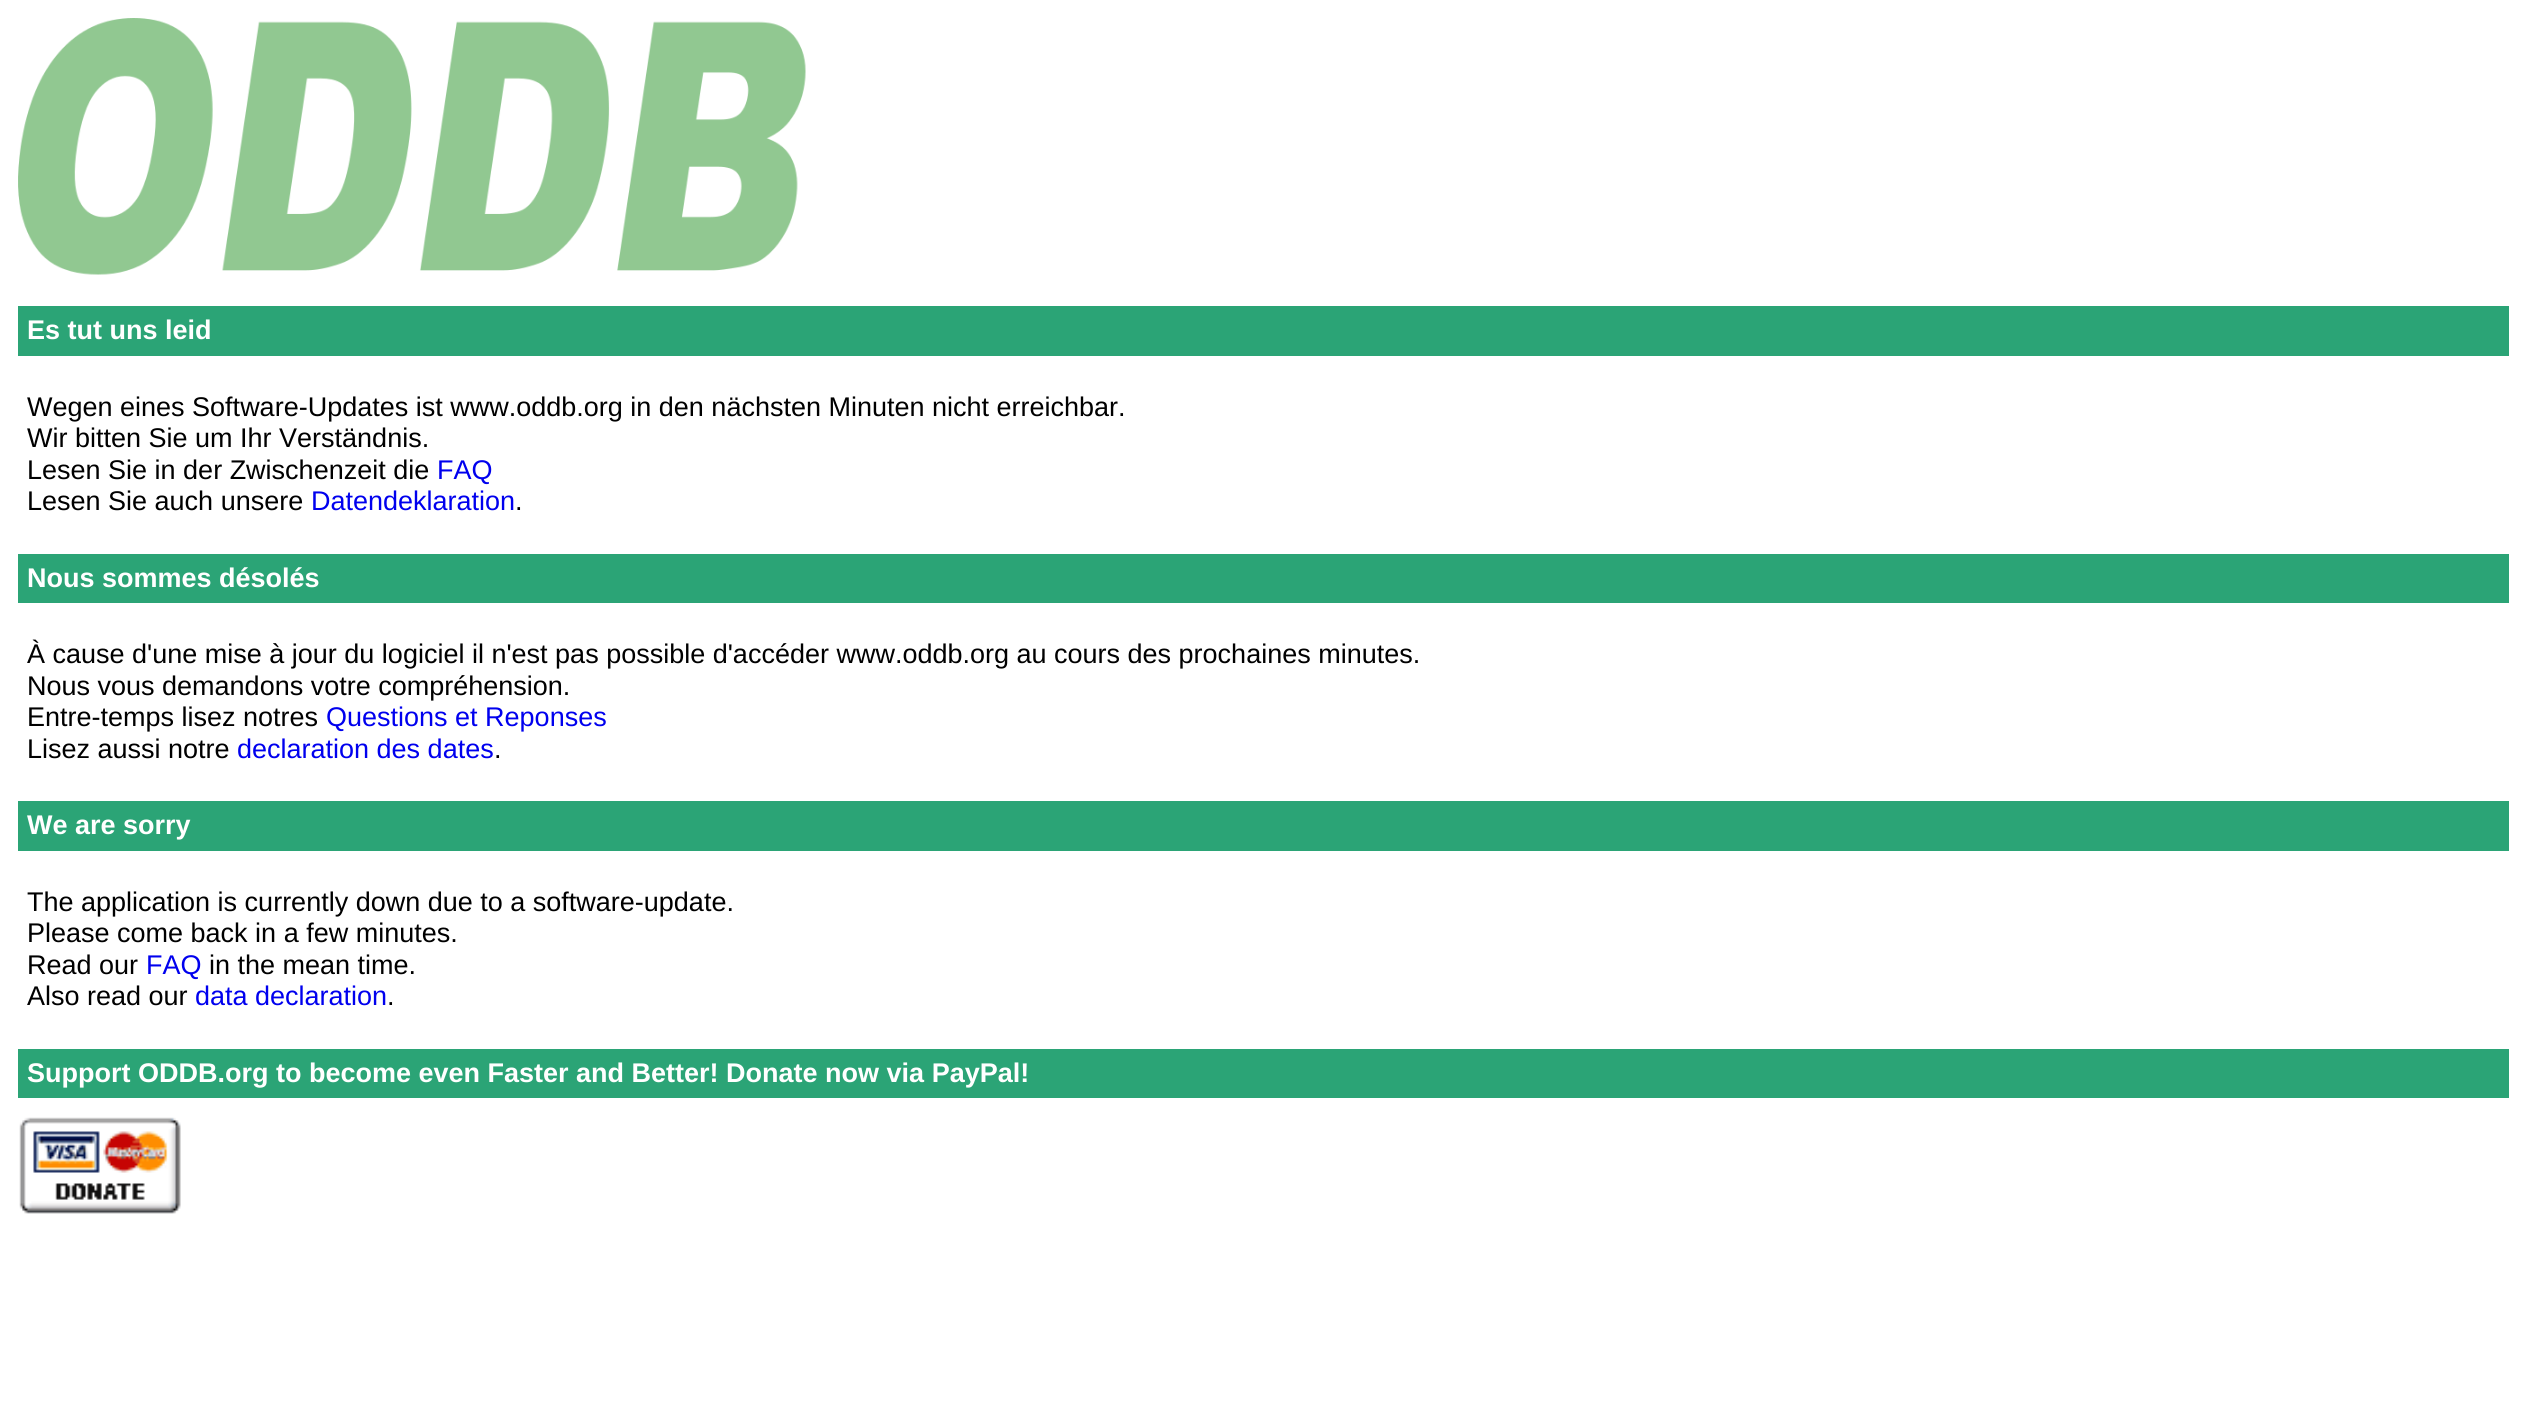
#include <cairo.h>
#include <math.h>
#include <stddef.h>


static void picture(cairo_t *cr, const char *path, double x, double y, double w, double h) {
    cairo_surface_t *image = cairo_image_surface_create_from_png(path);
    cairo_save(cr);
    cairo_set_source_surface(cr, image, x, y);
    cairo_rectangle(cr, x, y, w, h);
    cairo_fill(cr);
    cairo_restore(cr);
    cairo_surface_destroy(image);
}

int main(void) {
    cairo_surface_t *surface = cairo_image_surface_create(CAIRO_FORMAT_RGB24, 2526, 1424);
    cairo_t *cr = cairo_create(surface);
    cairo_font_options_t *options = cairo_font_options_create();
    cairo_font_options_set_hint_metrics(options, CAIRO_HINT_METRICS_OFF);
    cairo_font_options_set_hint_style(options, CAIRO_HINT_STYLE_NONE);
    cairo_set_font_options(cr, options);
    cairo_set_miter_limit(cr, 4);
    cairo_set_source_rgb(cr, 1, 1, 1);
    cairo_paint(cr);
    picture(cr, "img1.png", 18, 18, 788, 257);
    cairo_set_source_rgb(cr, 0.169, 0.643, 0.463);
    cairo_rectangle(cr, 18, 306, 2491, 50);
    cairo_fill(cr);
    cairo_select_font_face(cr, "Liberation Sans", CAIRO_FONT_SLANT_NORMAL, CAIRO_FONT_WEIGHT_BOLD);
    cairo_set_font_size(cr, 27);
    cairo_set_source_rgb(cr, 1, 1, 1);
    cairo_move_to(cr, 27, 339);
    cairo_show_text(cr, "Es tut uns leid");
    cairo_select_font_face(cr, "Liberation Sans", CAIRO_FONT_SLANT_NORMAL, CAIRO_FONT_WEIGHT_NORMAL);
    cairo_set_source_rgb(cr, 0, 0, 0);
    cairo_move_to(cr, 27, 416);
    cairo_show_text(cr, "Wegen eines Software-Updates ist www.oddb.org in den nächsten Minuten nicht erreichbar.");
    cairo_move_to(cr, 27, 447);
    cairo_show_text(cr, "Wir bitten Sie um Ihr Verständnis.");
    cairo_move_to(cr, 27, 479);
    cairo_show_text(cr, "Lesen Sie in der Zwischenzeit die");
    cairo_set_source_rgb(cr, 0, 0, 0.933);
    cairo_move_to(cr, 437, 479);
    cairo_show_text(cr, "FAQ");
    cairo_set_source_rgb(cr, 0, 0, 0);
    cairo_move_to(cr, 27, 510);
    cairo_show_text(cr, "Lesen Sie auch unsere");
    cairo_set_source_rgb(cr, 0, 0, 0.933);
    cairo_move_to(cr, 311, 510);
    cairo_show_text(cr, "Datendeklaration");
    cairo_set_source_rgb(cr, 0, 0, 0);
    cairo_move_to(cr, 515, 510);
    cairo_show_text(cr, ".");
    cairo_set_source_rgb(cr, 0.169, 0.643, 0.463);
    cairo_rectangle(cr, 18, 554, 2491, 49);
    cairo_fill(cr);
    cairo_select_font_face(cr, "Liberation Sans", CAIRO_FONT_SLANT_NORMAL, CAIRO_FONT_WEIGHT_BOLD);
    cairo_set_source_rgb(cr, 1, 1, 1);
    cairo_move_to(cr, 27, 587);
    cairo_show_text(cr, "Nous sommes désolés");
    cairo_select_font_face(cr, "Liberation Sans", CAIRO_FONT_SLANT_NORMAL, CAIRO_FONT_WEIGHT_NORMAL);
    cairo_set_source_rgb(cr, 0, 0, 0);
    cairo_move_to(cr, 27, 663);
    cairo_show_text(cr, "À cause d'une mise à jour du logiciel il n'est pas possible d'accéder www.oddb.org au cours des prochaines minutes.");
    cairo_move_to(cr, 27, 695);
    cairo_show_text(cr, "Nous vous demandons votre compréhension.");
    cairo_move_to(cr, 27, 726);
    cairo_show_text(cr, "Entre-temps lisez notres");
    cairo_set_source_rgb(cr, 0, 0, 0.933);
    cairo_move_to(cr, 326, 726);
    cairo_show_text(cr, "Questions et Reponses");
    cairo_set_source_rgb(cr, 0, 0, 0);
    cairo_move_to(cr, 27, 758);
    cairo_show_text(cr, "Lisez aussi notre");
    cairo_set_source_rgb(cr, 0, 0, 0.933);
    cairo_move_to(cr, 237, 758);
    cairo_show_text(cr, "declaration des dates");
    cairo_set_source_rgb(cr, 0, 0, 0);
    cairo_move_to(cr, 494, 758);
    cairo_show_text(cr, ".");
    cairo_set_source_rgb(cr, 0.169, 0.643, 0.463);
    cairo_rectangle(cr, 18, 801, 2491, 50);
    cairo_fill(cr);
    cairo_select_font_face(cr, "Liberation Sans", CAIRO_FONT_SLANT_NORMAL, CAIRO_FONT_WEIGHT_BOLD);
    cairo_set_source_rgb(cr, 1, 1, 1);
    cairo_move_to(cr, 27, 834);
    cairo_show_text(cr, "We are sorry");
    cairo_select_font_face(cr, "Liberation Sans", CAIRO_FONT_SLANT_NORMAL, CAIRO_FONT_WEIGHT_NORMAL);
    cairo_set_source_rgb(cr, 0, 0, 0);
    cairo_move_to(cr, 27, 911);
    cairo_show_text(cr, "The application is currently down due to a software-update.");
    cairo_move_to(cr, 27, 942);
    cairo_show_text(cr, "Please come back in a few minutes.");
    cairo_move_to(cr, 27, 974);
    cairo_show_text(cr, "Read our");
    cairo_set_source_rgb(cr, 0, 0, 0.933);
    cairo_move_to(cr, 146, 974);
    cairo_show_text(cr, "FAQ");
    cairo_set_source_rgb(cr, 0, 0, 0);
    cairo_move_to(cr, 209, 974);
    cairo_show_text(cr, "in the mean time.");
    cairo_move_to(cr, 27, 1005);
    cairo_show_text(cr, "Also read our");
    cairo_set_source_rgb(cr, 0, 0, 0.933);
    cairo_move_to(cr, 195, 1005);
    cairo_show_text(cr, "data declaration");
    cairo_set_source_rgb(cr, 0, 0, 0);
    cairo_move_to(cr, 387, 1005);
    cairo_show_text(cr, ".");
    cairo_set_source_rgb(cr, 0.169, 0.643, 0.463);
    cairo_rectangle(cr, 18, 1049, 2491, 49);
    cairo_fill(cr);
    cairo_select_font_face(cr, "Liberation Sans", CAIRO_FONT_SLANT_NORMAL, CAIRO_FONT_WEIGHT_BOLD);
    cairo_set_source_rgb(cr, 1, 1, 1);
    cairo_move_to(cr, 27, 1082);
    cairo_show_text(cr, "Support ODDB.org to become even Faster and Better! Donate now via PayPal!");
    picture(cr, "img2.png", 19, 1117, 162, 97);
    cairo_surface_write_to_png(surface, "page.png");
    cairo_font_options_destroy(options);
    cairo_destroy(cr);
    cairo_surface_destroy(surface);
    return 0;
}
